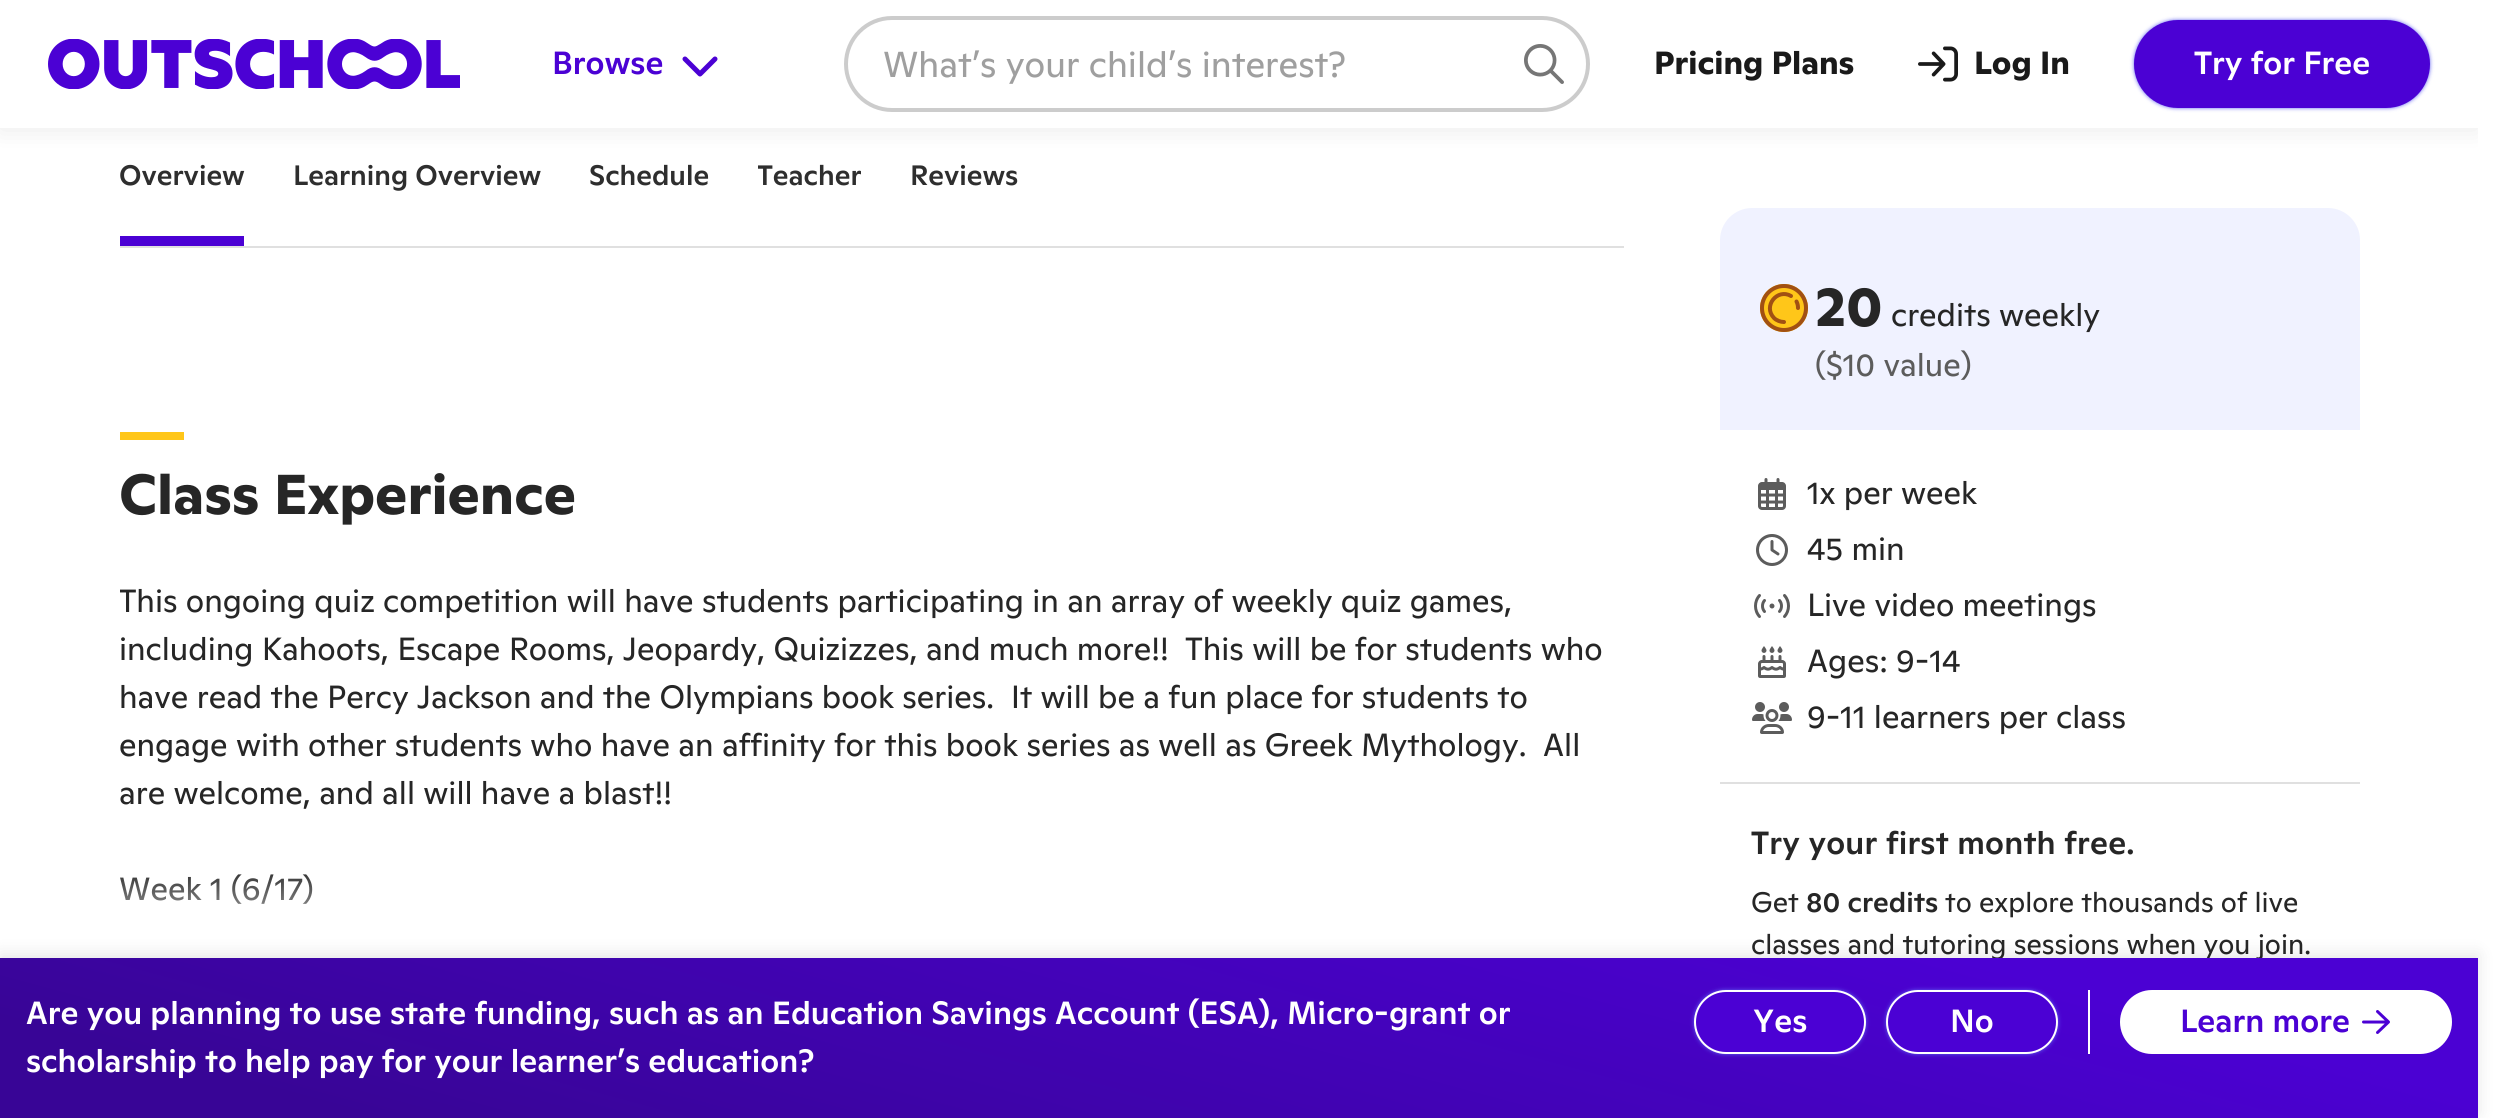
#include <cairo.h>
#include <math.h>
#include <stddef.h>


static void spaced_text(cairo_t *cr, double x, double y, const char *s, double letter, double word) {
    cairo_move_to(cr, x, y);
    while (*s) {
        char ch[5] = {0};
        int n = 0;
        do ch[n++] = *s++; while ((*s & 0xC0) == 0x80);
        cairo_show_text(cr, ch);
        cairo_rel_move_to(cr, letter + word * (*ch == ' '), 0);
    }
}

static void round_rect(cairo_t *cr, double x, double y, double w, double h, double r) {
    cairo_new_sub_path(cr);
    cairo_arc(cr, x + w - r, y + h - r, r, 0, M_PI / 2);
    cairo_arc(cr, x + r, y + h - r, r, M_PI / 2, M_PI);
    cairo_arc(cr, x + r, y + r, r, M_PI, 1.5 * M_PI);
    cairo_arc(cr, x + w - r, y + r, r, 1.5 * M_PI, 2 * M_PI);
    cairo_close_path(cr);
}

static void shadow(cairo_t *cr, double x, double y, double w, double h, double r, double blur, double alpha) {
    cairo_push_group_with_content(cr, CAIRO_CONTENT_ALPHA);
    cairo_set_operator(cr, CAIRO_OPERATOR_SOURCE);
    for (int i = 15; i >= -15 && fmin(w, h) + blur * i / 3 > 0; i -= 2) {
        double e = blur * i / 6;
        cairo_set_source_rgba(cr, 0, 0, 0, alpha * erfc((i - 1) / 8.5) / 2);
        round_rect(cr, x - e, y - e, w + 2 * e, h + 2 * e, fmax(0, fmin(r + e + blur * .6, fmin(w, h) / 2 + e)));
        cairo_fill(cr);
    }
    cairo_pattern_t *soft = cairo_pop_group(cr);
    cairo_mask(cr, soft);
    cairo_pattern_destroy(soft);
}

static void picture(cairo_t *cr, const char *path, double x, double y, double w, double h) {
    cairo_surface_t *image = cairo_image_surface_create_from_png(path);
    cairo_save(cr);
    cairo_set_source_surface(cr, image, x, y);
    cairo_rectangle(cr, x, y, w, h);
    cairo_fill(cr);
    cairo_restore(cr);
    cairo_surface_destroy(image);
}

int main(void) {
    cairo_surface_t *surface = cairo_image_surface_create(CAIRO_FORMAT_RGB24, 2507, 1118);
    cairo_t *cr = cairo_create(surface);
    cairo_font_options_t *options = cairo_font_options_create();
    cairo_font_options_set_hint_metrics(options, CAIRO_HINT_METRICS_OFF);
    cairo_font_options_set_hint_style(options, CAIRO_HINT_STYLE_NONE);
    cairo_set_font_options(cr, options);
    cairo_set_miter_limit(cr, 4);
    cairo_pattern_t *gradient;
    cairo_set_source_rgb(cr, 1, 1, 1);
    cairo_paint(cr);
    cairo_save(cr);
    cairo_rectangle(cr, 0, 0, 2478, 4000);
    cairo_clip(cr);
    cairo_set_source_rgb(cr, 0, 0, 0);
    shadow(cr, 0, 2, 2478, 128, 0, 12, 0.08);
    cairo_restore(cr);
    cairo_set_source_rgb(cr, 1, 1, 1);
    cairo_rectangle(cr, 0, 0, 2478, 128);
    cairo_fill(cr);
    picture(cr, "img1.png", 48, 39, 412, 50);
    cairo_select_font_face(cr, "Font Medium", CAIRO_FONT_SLANT_NORMAL, CAIRO_FONT_WEIGHT_NORMAL);
    cairo_set_font_size(cr, 32);
    cairo_set_source_rgb(cr, 0.294, 0.004, 0.831);
    cairo_move_to(cr, 552, 74);
    cairo_show_text(cr, "Browse");
    picture(cr, "img2.png", 682, 56, 36, 21);
    round_rect(cr, 846, 18, 742, 92, 46);
    cairo_set_source_rgb(cr, 0.8, 0.8, 0.8);
    cairo_set_line_width(cr, 4);
    cairo_stroke(cr);
    cairo_select_font_face(cr, "Font", CAIRO_FONT_SLANT_NORMAL, CAIRO_FONT_WEIGHT_NORMAL);
    cairo_set_font_size(cr, 36);
    cairo_set_source_rgb(cr, 0.624, 0.624, 0.624);
    cairo_move_to(cr, 883, 77);
    cairo_show_text(cr, "What’s your child’s interest?");
    picture(cr, "img3.png", 1524, 44, 40, 40);
    cairo_select_font_face(cr, "Font", CAIRO_FONT_SLANT_NORMAL, CAIRO_FONT_WEIGHT_BOLD);
    cairo_set_font_size(cr, 32);
    cairo_set_source_rgb(cr, 0.102, 0.102, 0.102);
    cairo_move_to(cr, 1654, 74);
    cairo_show_text(cr, "Pricing Plans");
    picture(cr, "img4.png", 1918, 46, 40, 36);
    cairo_move_to(cr, 1974, 74);
    cairo_show_text(cr, "Log In");
    cairo_set_source_rgb(cr, 0.38, 0.38, 0.949);
    shadow(cr, 2134, 20, 296, 88, 44, 2, 1);
    cairo_set_source_rgb(cr, 0.294, 0.004, 0.831);
    round_rect(cr, 2134, 20, 296, 88, 44);
    cairo_fill(cr);
    cairo_select_font_face(cr, "Font Medium", CAIRO_FONT_SLANT_NORMAL, CAIRO_FONT_WEIGHT_NORMAL);
    cairo_set_source_rgb(cr, 1, 1, 1);
    cairo_move_to(cr, 2194, 74);
    cairo_show_text(cr, "Try for Free");
    cairo_set_source_rgb(cr, 0.878, 0.878, 0.878);
    cairo_rectangle(cr, 120, 246, 1504, 2);
    cairo_fill(cr);
    cairo_set_font_size(cr, 28);
    cairo_set_source_rgb(cr, 0.18, 0.18, 0.18);
    cairo_move_to(cr, 119, 185);
    cairo_show_text(cr, "Overview");
    cairo_move_to(cr, 293, 185);
    cairo_show_text(cr, "Learning Overview");
    cairo_move_to(cr, 589, 185);
    cairo_show_text(cr, "Schedule");
    cairo_save(cr);
    cairo_rectangle(cr, 758, 128, 104, 96);
    cairo_clip(cr);
    cairo_move_to(cr, 757, 185);
    cairo_show_text(cr, "Teacher");
    cairo_restore(cr);
    cairo_move_to(cr, 910, 185);
    cairo_show_text(cr, "Reviews");
    cairo_set_source_rgb(cr, 0.294, 0.004, 0.831);
    cairo_rectangle(cr, 120, 236, 124, 10);
    cairo_fill(cr);
    cairo_set_source_rgb(cr, 1, 0.776, 0.098);
    cairo_rectangle(cr, 120, 432, 64, 8);
    cairo_fill(cr);
    cairo_select_font_face(cr, "Font", CAIRO_FONT_SLANT_NORMAL, CAIRO_FONT_WEIGHT_BOLD);
    cairo_set_font_size(cr, 56);
    cairo_set_source_rgb(cr, 0.149, 0.149, 0.149);
    cairo_move_to(cr, 119, 514);
    cairo_show_text(cr, "Class Experience");
    cairo_save(cr);
    cairo_rectangle(cr, 120, 578, 1504, 384);
    cairo_clip(cr);
    cairo_select_font_face(cr, "Font", CAIRO_FONT_SLANT_NORMAL, CAIRO_FONT_WEIGHT_NORMAL);
    cairo_set_font_size(cr, 32);
    cairo_move_to(cr, 119, 612);
    cairo_show_text(cr, "This ongoing quiz competition will have students participating in an array of weekly quiz games,");
    cairo_restore(cr);
    cairo_select_font_face(cr, "Font", CAIRO_FONT_SLANT_NORMAL, CAIRO_FONT_WEIGHT_NORMAL);
    cairo_set_font_size(cr, 32);
    cairo_move_to(cr, 119, 660);
    cairo_show_text(cr, "including Kahoots, Escape Rooms, Jeopardy, Quizizzes, and much more!!  This will be for students who");
    cairo_move_to(cr, 119, 708);
    cairo_show_text(cr, "have read the Percy Jackson and the Olympians book series.  It will be a fun place for students to");
    cairo_move_to(cr, 119, 756);
    cairo_show_text(cr, "engage with other students who have an affinity for this book series as well as Greek Mythology.  All");
    cairo_move_to(cr, 119, 804);
    cairo_show_text(cr, "are welcome, and all will have a blast!!");
    cairo_move_to(cr, 119, 900);
    cairo_show_text(cr, "Week 1 (6/17)");
    gradient = cairo_pattern_create_linear(872, 578, 872, 962);
    cairo_pattern_add_color_stop_rgba(gradient, 0.75, 1, 1, 1, 0);
    cairo_pattern_add_color_stop_rgba(gradient, 1, 1, 1, 1, 1);
    cairo_set_source(cr, gradient);
    cairo_pattern_destroy(gradient);
    cairo_rectangle(cr, 120, 874, 193, 30);
    cairo_fill(cr);
    cairo_set_source_rgb(cr, 0.941, 0.949, 1);
    cairo_new_path(cr);
    cairo_move_to(cr, 1752, 208);
    cairo_line_to(cr, 2328, 208);
    cairo_curve_to(cr, 2345.5, 208, 2360, 222.5, 2360, 240);
    cairo_line_to(cr, 2360, 430);
    cairo_line_to(cr, 1720, 430);
    cairo_line_to(cr, 1720, 240);
    cairo_curve_to(cr, 1720, 222.5, 1734.5, 208, 1752, 208);
    cairo_close_path(cr);
    cairo_fill(cr);
    cairo_set_source_rgb(cr, 1, 0.776, 0.098);
    cairo_arc(cr, 1784, 308, 24, 0, 2 * M_PI);
    cairo_fill(cr);
    cairo_arc(cr, 1784, 308, 22, 0, 2 * M_PI);
    cairo_set_source_rgb(cr, 0.631, 0.314, 0.078);
    cairo_stroke(cr);
    cairo_new_path(cr);
    cairo_move_to(cr, 1798, 308);
    cairo_curve_to(cr, 1798, 305.5, 1797.5, 303.5, 1796.5, 301.5);
    cairo_move_to(cr, 1784, 322);
    cairo_curve_to(cr, 1780.5, 322, 1776.5, 320.5, 1774, 318);
    cairo_curve_to(cr, 1762.5, 306, 1777.5, 288, 1791, 296);
    cairo_set_line_cap(cr, CAIRO_LINE_CAP_ROUND);
    cairo_set_line_join(cr, CAIRO_LINE_JOIN_ROUND);
    cairo_stroke(cr);
    cairo_select_font_face(cr, "Font", CAIRO_FONT_SLANT_NORMAL, CAIRO_FONT_WEIGHT_BOLD);
    cairo_set_font_size(cr, 56);
    cairo_set_source_rgb(cr, 0.149, 0.149, 0.149);
    cairo_move_to(cr, 1815, 326);
    cairo_show_text(cr, "20");
    cairo_select_font_face(cr, "Font", CAIRO_FONT_SLANT_NORMAL, CAIRO_FONT_WEIGHT_NORMAL);
    cairo_set_font_size(cr, 32);
    cairo_move_to(cr, 1891, 326);
    cairo_show_text(cr, "credits weekly");
    cairo_set_source_rgb(cr, 0.361, 0.361, 0.361);
    cairo_move_to(cr, 1815, 376);
    cairo_show_text(cr, "($10 value)");
    picture(cr, "img5.png", 1758, 478, 28, 32);
    cairo_set_source_rgb(cr, 0.149, 0.149, 0.149);
    cairo_move_to(cr, 1807, 504);
    cairo_show_text(cr, "1x per week");
    picture(cr, "img6.png", 1756, 534, 32, 32);
    cairo_move_to(cr, 1807, 560);
    cairo_show_text(cr, "45 min");
    picture(cr, "img7.png", 1754, 594, 36, 24);
    cairo_move_to(cr, 1807, 616);
    cairo_show_text(cr, "Live video meetings");
    picture(cr, "img8.png", 1758, 646, 28, 32);
    cairo_move_to(cr, 1807, 672);
    cairo_show_text(cr, "Ages: 9-14");
    picture(cr, "img9.png", 1752, 702, 40, 32);
    cairo_move_to(cr, 1807, 728);
    cairo_show_text(cr, "9-11 learners per class");
    cairo_set_source_rgb(cr, 0.878, 0.878, 0.878);
    cairo_rectangle(cr, 1720, 782, 640, 2);
    cairo_fill(cr);
    cairo_select_font_face(cr, "Font Medium", CAIRO_FONT_SLANT_NORMAL, CAIRO_FONT_WEIGHT_NORMAL);
    cairo_set_source_rgb(cr, 0.149, 0.149, 0.149);
    spaced_text(cr, 1751, 854, "Try your first month free.", 0.2, 0);
    cairo_select_font_face(cr, "Font", CAIRO_FONT_SLANT_NORMAL, CAIRO_FONT_WEIGHT_NORMAL);
    cairo_set_font_size(cr, 28);
    cairo_move_to(cr, 1751, 912);
    cairo_show_text(cr, "Get");
    cairo_select_font_face(cr, "Font Medium", CAIRO_FONT_SLANT_NORMAL, CAIRO_FONT_WEIGHT_NORMAL);
    cairo_move_to(cr, 1806, 912);
    cairo_show_text(cr, "80 credits");
    cairo_select_font_face(cr, "Font", CAIRO_FONT_SLANT_NORMAL, CAIRO_FONT_WEIGHT_NORMAL);
    cairo_move_to(cr, 1945, 912);
    cairo_show_text(cr, "to explore thousands of live");
    cairo_move_to(cr, 1751, 954);
    cairo_show_text(cr, "classes and tutoring sessions when you join.");
    cairo_set_source_rgb(cr, 0, 0, 0);
    shadow(cr, 0, 954, 2478, 160, 0, 8, 0.1);
    gradient = cairo_pattern_create_linear(1342, 654, 1136, 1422);
    cairo_pattern_add_color_stop_rgba(gradient, 0.17, 0.294, 0.004, 0.827, 1);
    cairo_pattern_add_color_stop_rgba(gradient, 0.88, 0.22, 0.02, 0.588, 1);
    cairo_set_source(cr, gradient);
    cairo_pattern_destroy(gradient);
    cairo_rectangle(cr, 0, 958, 2478, 160);
    cairo_fill(cr);
    cairo_select_font_face(cr, "Font Medium", CAIRO_FONT_SLANT_NORMAL, CAIRO_FONT_WEIGHT_NORMAL);
    cairo_set_font_size(cr, 32);
    cairo_set_source_rgb(cr, 1, 1, 1);
    cairo_move_to(cr, 26, 1024);
    cairo_show_text(cr, "Are you planning to use state funding, such as an Education Savings Account (ESA), Micro-grant or");
    cairo_move_to(cr, 26, 1072);
    cairo_show_text(cr, "scholarship to help pay for your learner’s education?");
    cairo_set_source_rgb(cr, 0.38, 0.38, 0.949);
    shadow(cr, 1694, 990, 172, 64, 32, 2, 1);
    cairo_set_source_rgb(cr, 0.294, 0.004, 0.831);
    round_rect(cr, 1695, 991, 170, 62, 31);
    cairo_fill_preserve(cr);
    cairo_set_source_rgb(cr, 1, 1, 1);
    cairo_set_line_width(cr, 2);
    cairo_set_line_cap(cr, CAIRO_LINE_CAP_BUTT);
    cairo_set_line_join(cr, CAIRO_LINE_JOIN_MITER);
    cairo_stroke(cr);
    cairo_move_to(cr, 1753, 1032);
    cairo_show_text(cr, "Yes");
    cairo_set_source_rgb(cr, 0.38, 0.38, 0.949);
    shadow(cr, 1886, 990, 172, 64, 32, 2, 1);
    cairo_set_source_rgb(cr, 0.294, 0.004, 0.831);
    round_rect(cr, 1887, 991, 170, 62, 31);
    cairo_fill_preserve(cr);
    cairo_set_source_rgb(cr, 1, 1, 1);
    cairo_stroke(cr);
    cairo_move_to(cr, 1950, 1032);
    cairo_show_text(cr, "No");
    cairo_rectangle(cr, 2088, 990, 2, 64);
    cairo_fill(cr);
    round_rect(cr, 2122, 992, 328, 60, 30);
    cairo_fill_preserve(cr);
    cairo_set_line_width(cr, 4);
    cairo_stroke(cr);
    cairo_set_source_rgb(cr, 0.294, 0.004, 0.831);
    cairo_move_to(cr, 2180, 1032);
    cairo_show_text(cr, "Learn more");
    picture(cr, "img10.png", 2362, 1010, 28, 24);
    cairo_surface_write_to_png(surface, "page.png");
    cairo_font_options_destroy(options);
    cairo_destroy(cr);
    cairo_surface_destroy(surface);
    return 0;
}
